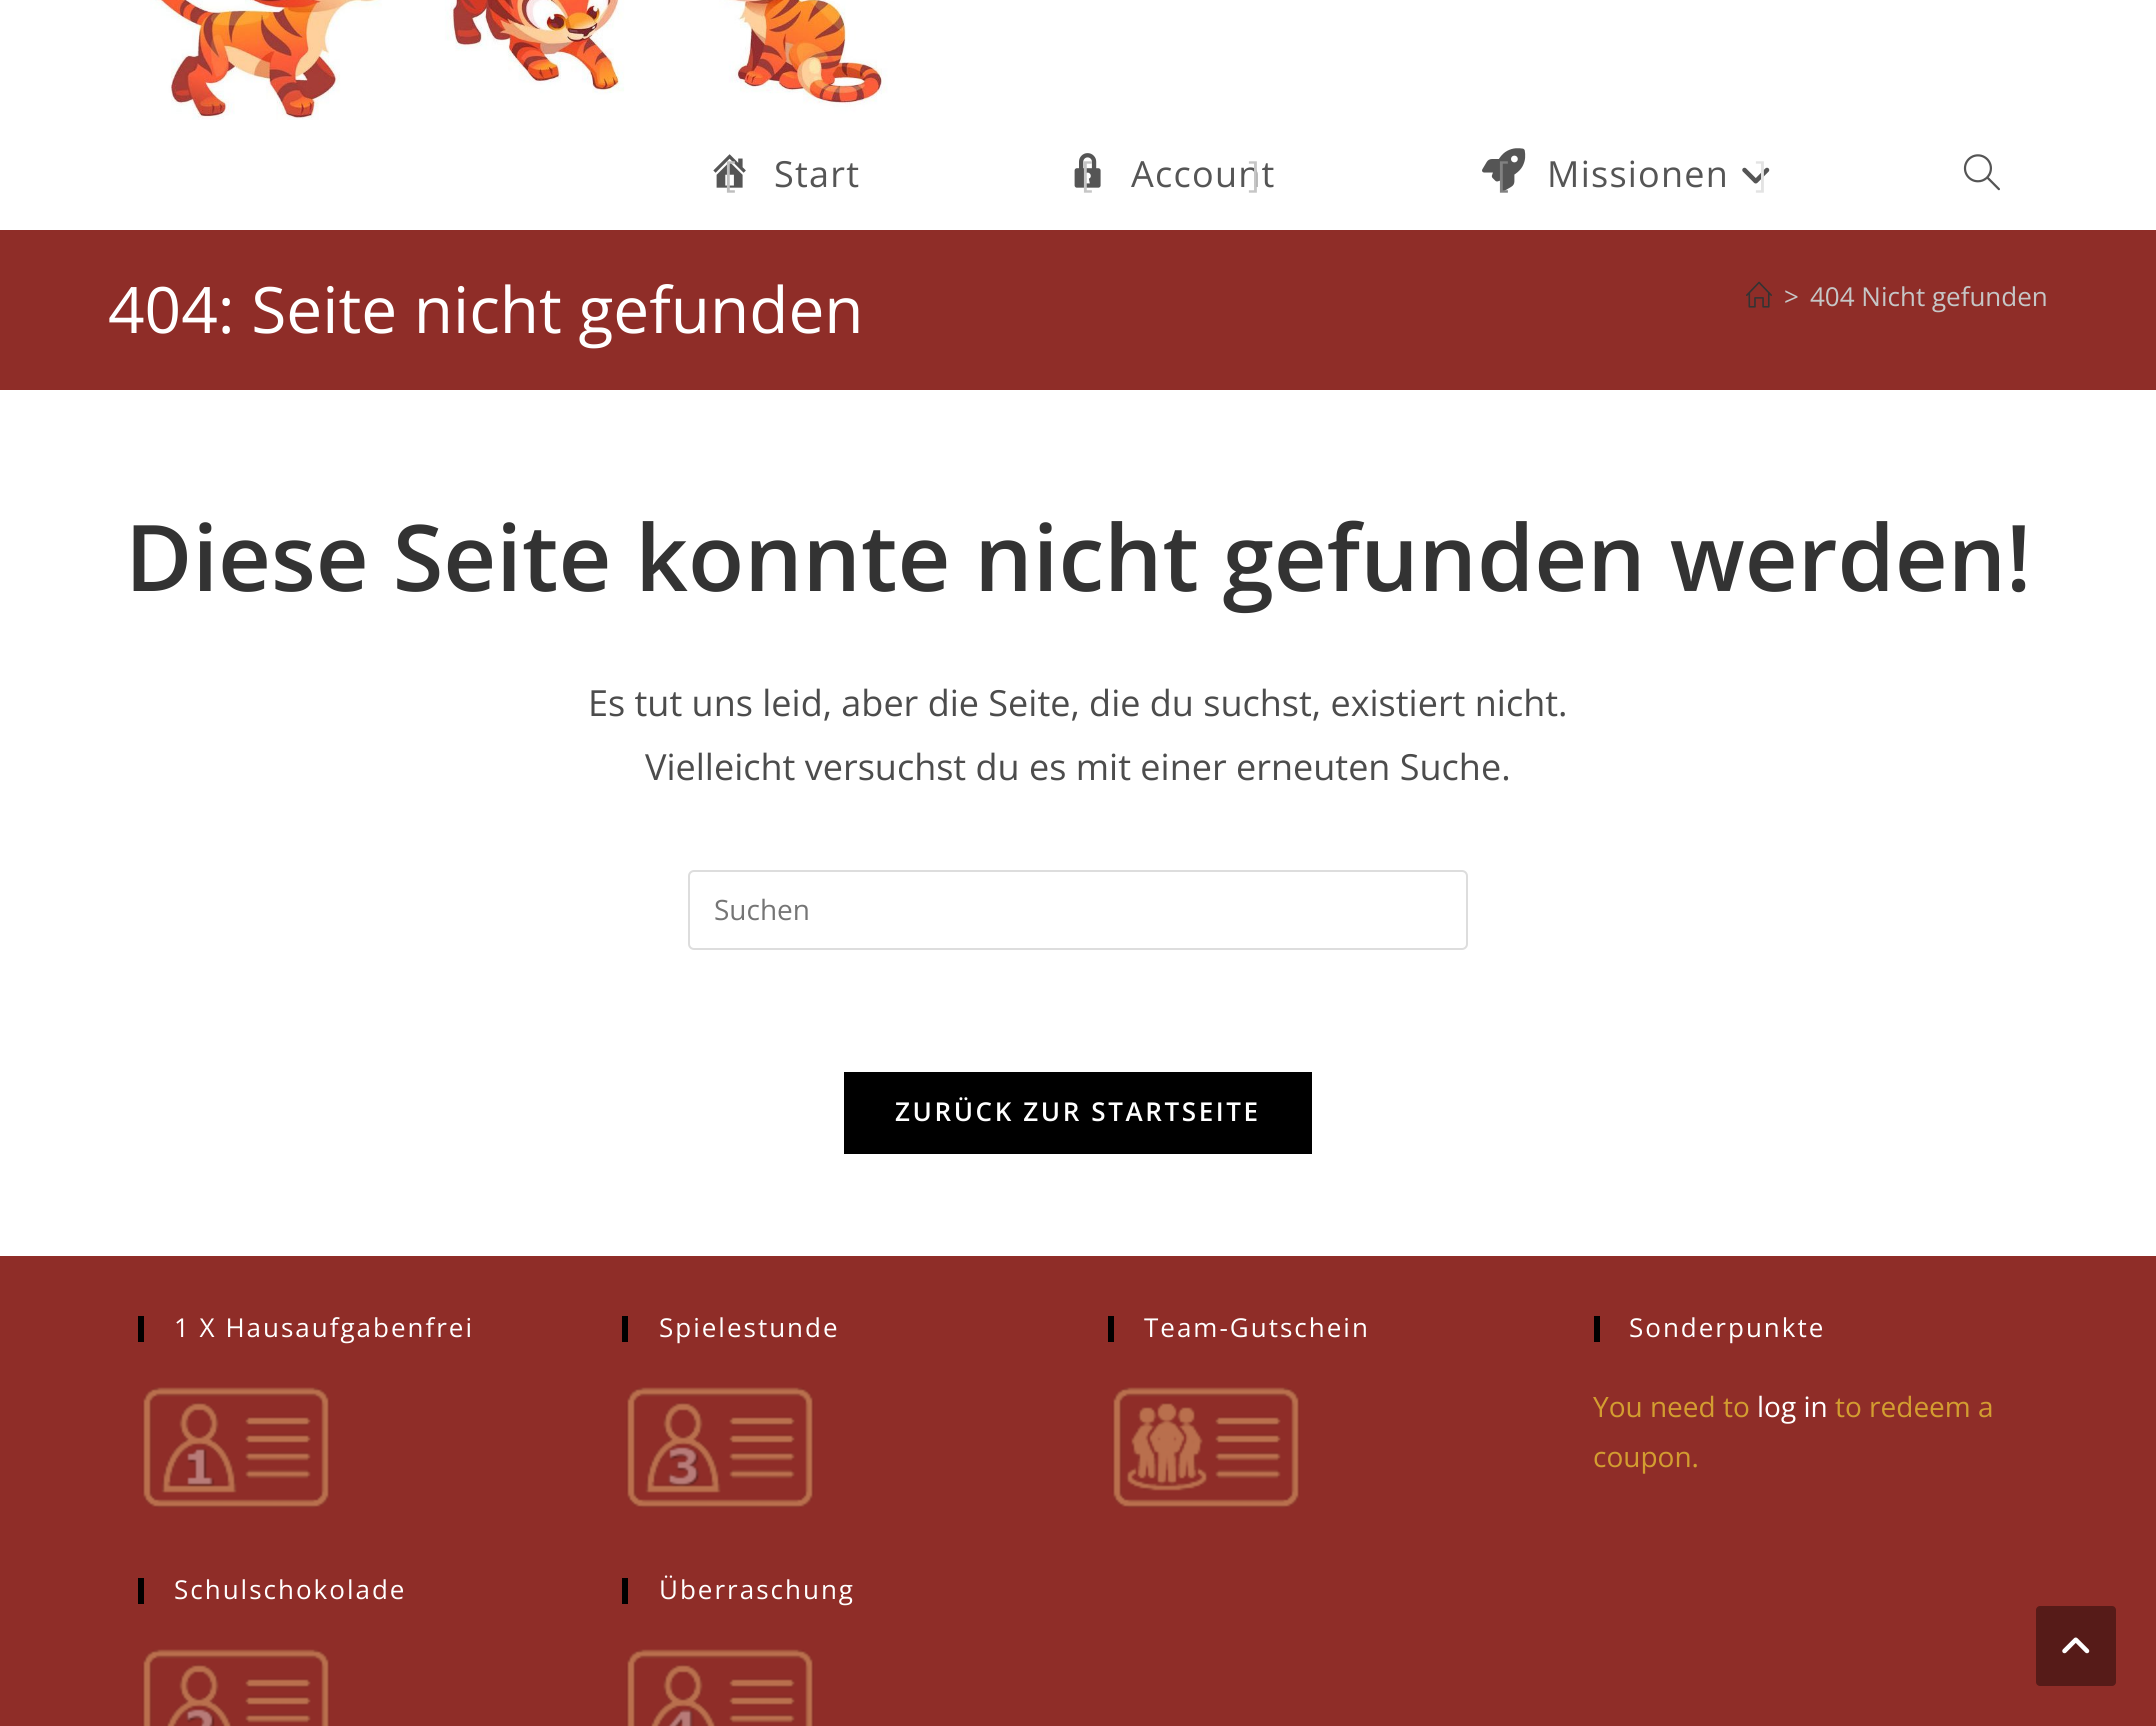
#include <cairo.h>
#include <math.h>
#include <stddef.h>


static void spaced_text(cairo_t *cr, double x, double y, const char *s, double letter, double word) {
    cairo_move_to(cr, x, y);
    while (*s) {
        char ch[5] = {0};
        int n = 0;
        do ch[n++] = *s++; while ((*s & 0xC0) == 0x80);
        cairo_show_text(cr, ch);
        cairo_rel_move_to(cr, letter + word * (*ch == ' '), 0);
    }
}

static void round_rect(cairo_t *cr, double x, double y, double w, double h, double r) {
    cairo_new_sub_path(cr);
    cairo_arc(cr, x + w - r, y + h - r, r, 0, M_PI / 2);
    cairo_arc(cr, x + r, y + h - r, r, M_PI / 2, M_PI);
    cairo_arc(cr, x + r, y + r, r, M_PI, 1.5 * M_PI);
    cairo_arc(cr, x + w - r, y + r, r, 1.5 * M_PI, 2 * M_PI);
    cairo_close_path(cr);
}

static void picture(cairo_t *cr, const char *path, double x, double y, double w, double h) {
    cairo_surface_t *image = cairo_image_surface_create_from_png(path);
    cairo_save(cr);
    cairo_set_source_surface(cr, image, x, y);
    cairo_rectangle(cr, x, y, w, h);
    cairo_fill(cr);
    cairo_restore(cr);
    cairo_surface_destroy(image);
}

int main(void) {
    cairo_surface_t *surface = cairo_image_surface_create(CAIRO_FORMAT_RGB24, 2156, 1726);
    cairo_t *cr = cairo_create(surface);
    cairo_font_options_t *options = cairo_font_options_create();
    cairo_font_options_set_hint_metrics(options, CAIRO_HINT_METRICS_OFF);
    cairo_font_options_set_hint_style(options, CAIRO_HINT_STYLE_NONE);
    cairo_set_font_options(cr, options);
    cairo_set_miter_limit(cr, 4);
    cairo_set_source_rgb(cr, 1, 1, 1);
    cairo_paint(cr);
    picture(cr, "img1.png", 150, 0, 738, 120);
    picture(cr, "img2.png", 713, 154, 33, 34);
    cairo_select_font_face(cr, "Open Sans", CAIRO_FONT_SLANT_NORMAL, CAIRO_FONT_WEIGHT_NORMAL);
    cairo_set_font_size(cr, 36);
    cairo_set_source_rgb(cr, 0.333, 0.333, 0.333);
    spaced_text(cr, 774, 187, "Start", 1.25, 0);
    cairo_set_source_rgb(cr, 0.745, 0.745, 0.745);
    spaced_text(cr, 724, 187, "[", 1.25, 0);
    picture(cr, "img3.png", 1074, 153, 27, 35);
    cairo_set_source_rgb(cr, 0.776, 0.776, 0.776);
    spaced_text(cr, 1081, 187, "[", 1.25, 0);
    cairo_set_source_rgb(cr, 0.333, 0.333, 0.333);
    spaced_text(cr, 1131, 187, "Account", 1.25, 0);
    cairo_set_source_rgb(cr, 0.776, 0.776, 0.776);
    spaced_text(cr, 1248, 187, "]", 1.25, 0);
    picture(cr, "img4.png", 1482, 148, 44, 44);
    cairo_set_source_rgb(cr, 0.333, 0.333, 0.333);
    spaced_text(cr, 1547, 187, "Missionen", 1.25, 0);
    picture(cr, "img5.png", 1742, 167, 28, 17);
    cairo_set_source_rgb(cr, 0.506, 0.506, 0.506);
    spaced_text(cr, 1497, 187, "[", 1.25, 0);
    cairo_set_source_rgb(cr, 0.89, 0.89, 0.89);
    spaced_text(cr, 1755, 187, "]", 1.25, 0);
    picture(cr, "img6.png", 1963, 154, 37, 37);
    cairo_set_source_rgb(cr, 0.561, 0.176, 0.157);
    cairo_rectangle(cr, 0, 230, 2156, 160);
    cairo_fill(cr);
    cairo_set_font_size(cr, 64);
    cairo_set_source_rgb(cr, 1, 1, 1);
    cairo_move_to(cr, 108, 333);
    cairo_show_text(cr, "404: Seite nicht gefunden");
    picture(cr, "img7.png", 1746, 281, 26, 27);
    cairo_set_font_size(cr, 26);
    cairo_set_source_rgb(cr, 0.776, 0.776, 0.776);
    cairo_move_to(cr, 1784, 306);
    cairo_show_text(cr, ">");
    cairo_move_to(cr, 1810, 306);
    cairo_show_text(cr, "404 Nicht gefunden");
    cairo_select_font_face(cr, "Open Sans SemiBold", CAIRO_FONT_SLANT_NORMAL, CAIRO_FONT_WEIGHT_NORMAL);
    cairo_set_font_size(cr, 92);
    cairo_set_source_rgb(cr, 0.2, 0.2, 0.2);
    cairo_move_to(cr, 125, 591);
    cairo_show_text(cr, "Diese Seite konnte nicht gefunden werden!");
    cairo_select_font_face(cr, "Open Sans", CAIRO_FONT_SLANT_NORMAL, CAIRO_FONT_WEIGHT_NORMAL);
    cairo_set_font_size(cr, 36);
    cairo_set_source_rgb(cr, 0.298, 0.298, 0.298);
    cairo_move_to(cr, 588, 716);
    cairo_show_text(cr, "Es tut uns leid, aber die Seite, die du suchst, existiert nicht.");
    cairo_move_to(cr, 645, 780);
    cairo_show_text(cr, "Vielleicht versuchst du es mit einer erneuten Suche.");
    round_rect(cr, 689, 871, 778, 78, 5);
    cairo_set_source_rgb(cr, 0.867, 0.867, 0.867);
    cairo_stroke(cr);
    cairo_set_font_size(cr, 28);
    cairo_set_source_rgb(cr, 0.459, 0.459, 0.459);
    cairo_move_to(cr, 714, 920);
    cairo_show_text(cr, "Suchen");
    cairo_set_source_rgb(cr, 0, 0, 0);
    cairo_rectangle(cr, 844, 1072, 468, 82);
    cairo_fill(cr);
    cairo_select_font_face(cr, "Open Sans SemiBold", CAIRO_FONT_SLANT_NORMAL, CAIRO_FONT_WEIGHT_NORMAL);
    cairo_set_font_size(cr, 26);
    cairo_set_source_rgb(cr, 1, 1, 1);
    spaced_text(cr, 895, 1121, "ZURÜCK ZUR STARTSEITE", 2.6, 0);
    cairo_set_source_rgb(cr, 0.561, 0.176, 0.157);
    cairo_rectangle(cr, 0, 1256, 2156, 470);
    cairo_fill(cr);
    cairo_set_source_rgb(cr, 0, 0, 0);
    cairo_rectangle(cr, 138, 1316, 6, 26);
    cairo_fill(cr);
    cairo_select_font_face(cr, "Open Sans", CAIRO_FONT_SLANT_NORMAL, CAIRO_FONT_WEIGHT_NORMAL);
    cairo_set_source_rgb(cr, 1, 1, 1);
    spaced_text(cr, 174, 1337, "1 X Hausaufgabenfrei", 2, 0);
    picture(cr, "img8.png", 142, 1387, 188, 121);
    cairo_set_source_rgb(cr, 0, 0, 0);
    cairo_rectangle(cr, 138, 1578, 6, 26);
    cairo_fill(cr);
    cairo_set_source_rgb(cr, 1, 1, 1);
    spaced_text(cr, 174, 1599, "Schulschokolade", 2, 0);
    picture(cr, "img9.png", 142, 1649, 188, 77);
    cairo_set_source_rgb(cr, 0, 0, 0);
    cairo_rectangle(cr, 622, 1316, 6, 26);
    cairo_fill(cr);
    cairo_set_source_rgb(cr, 1, 1, 1);
    spaced_text(cr, 659, 1337, "Spielestunde", 2, 0);
    picture(cr, "img10.png", 626, 1387, 188, 121);
    cairo_set_source_rgb(cr, 0, 0, 0);
    cairo_rectangle(cr, 622, 1578, 6, 26);
    cairo_fill(cr);
    cairo_set_source_rgb(cr, 1, 1, 1);
    spaced_text(cr, 659, 1599, "Überraschung", 2, 0);
    picture(cr, "img11.png", 626, 1649, 188, 77);
    cairo_set_source_rgb(cr, 0, 0, 0);
    cairo_rectangle(cr, 1108, 1316, 6, 26);
    cairo_fill(cr);
    cairo_set_source_rgb(cr, 1, 1, 1);
    spaced_text(cr, 1144, 1337, "Team-Gutschein", 2, 0);
    picture(cr, "img12.png", 1112, 1387, 188, 121);
    cairo_set_source_rgb(cr, 0, 0, 0);
    cairo_rectangle(cr, 1594, 1316, 6, 26);
    cairo_fill(cr);
    cairo_set_source_rgb(cr, 1, 1, 1);
    spaced_text(cr, 1629, 1337, "Sonderpunkte", 2, 0);
    cairo_set_font_size(cr, 28);
    cairo_set_source_rgb(cr, 0.827, 0.616, 0.188);
    cairo_move_to(cr, 1593, 1417);
    cairo_show_text(cr, "You need to");
    cairo_set_source_rgb(cr, 1, 1, 1);
    cairo_move_to(cr, 1757, 1417);
    cairo_show_text(cr, "log in");
    cairo_set_source_rgb(cr, 0.827, 0.616, 0.188);
    cairo_move_to(cr, 1835, 1417);
    cairo_show_text(cr, "to redeem a");
    cairo_move_to(cr, 1593, 1467);
    cairo_show_text(cr, "coupon.");
    cairo_set_source_rgb(cr, 0.337, 0.106, 0.094);
    round_rect(cr, 2036, 1606, 80, 80, 4);
    cairo_fill(cr);
    picture(cr, "img13.png", 2062, 1637, 28, 17);
    cairo_surface_write_to_png(surface, "page.png");
    cairo_font_options_destroy(options);
    cairo_destroy(cr);
    cairo_surface_destroy(surface);
    return 0;
}
